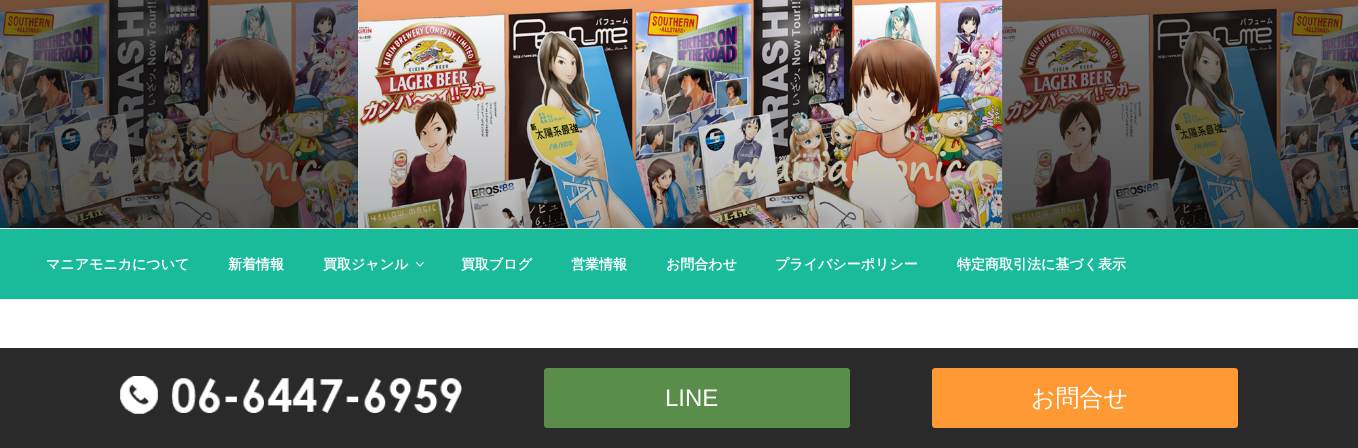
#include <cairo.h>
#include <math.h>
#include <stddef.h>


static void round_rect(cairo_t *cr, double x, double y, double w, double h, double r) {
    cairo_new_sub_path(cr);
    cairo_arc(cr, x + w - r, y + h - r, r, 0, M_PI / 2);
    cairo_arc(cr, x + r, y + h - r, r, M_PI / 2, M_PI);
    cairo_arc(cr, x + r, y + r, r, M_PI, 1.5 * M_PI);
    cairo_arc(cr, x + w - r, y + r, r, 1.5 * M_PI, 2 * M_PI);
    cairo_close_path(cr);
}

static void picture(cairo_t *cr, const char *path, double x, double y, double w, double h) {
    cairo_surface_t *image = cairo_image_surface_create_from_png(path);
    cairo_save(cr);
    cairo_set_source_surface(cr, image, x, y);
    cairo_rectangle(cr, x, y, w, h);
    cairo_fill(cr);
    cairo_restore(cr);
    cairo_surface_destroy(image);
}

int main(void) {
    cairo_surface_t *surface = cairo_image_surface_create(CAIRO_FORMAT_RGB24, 1358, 448);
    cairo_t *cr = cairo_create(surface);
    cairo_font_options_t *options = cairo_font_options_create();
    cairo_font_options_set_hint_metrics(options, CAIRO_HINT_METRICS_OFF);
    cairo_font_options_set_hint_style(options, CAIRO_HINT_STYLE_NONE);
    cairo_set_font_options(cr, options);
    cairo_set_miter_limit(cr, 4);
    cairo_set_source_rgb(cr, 1, 1, 1);
    cairo_paint(cr);
    picture(cr, "img1.png", 0, 0, 1358, 228);
    cairo_set_source_rgb(cr, 0.098, 0.733, 0.608);
    cairo_rectangle(cr, 0, 229, 1358, 70);
    cairo_fill(cr);
    cairo_set_source_rgb(cr, 0.933, 0.933, 0.933);
    cairo_rectangle(cr, 0, 228, 1358, 1);
    cairo_fill(cr);
    cairo_rectangle(cr, 0, 299, 1358, 1);
    cairo_fill(cr);
    cairo_select_font_face(cr, "WenQuanYi Zen Hei", CAIRO_FONT_SLANT_NORMAL, CAIRO_FONT_WEIGHT_BOLD);
    cairo_set_font_size(cr, 14);
    cairo_set_source_rgb(cr, 1, 1, 1);
    cairo_move_to(cr, 46, 269);
    cairo_show_text(cr, "マニアモニカについて");
    cairo_move_to(cr, 228, 269);
    cairo_show_text(cr, "新着情報");
    cairo_move_to(cr, 323, 269);
    cairo_show_text(cr, "買取ジャンル");
    picture(cr, "img2.png", 416, 262, 8, 5);
    cairo_move_to(cr, 461, 269);
    cairo_show_text(cr, "買取ブログ");
    cairo_move_to(cr, 571, 269);
    cairo_show_text(cr, "営業情報");
    cairo_move_to(cr, 666, 269);
    cairo_show_text(cr, "お問合わせ");
    cairo_move_to(cr, 775, 269);
    cairo_show_text(cr, "プライバシーポリシー");
    cairo_move_to(cr, 957, 269);
    cairo_show_text(cr, "特定商取引法に基づく表示");
    cairo_set_source_rgb(cr, 0.165, 0.165, 0.165);
    cairo_rectangle(cr, 0, 348, 1358, 100);
    cairo_fill(cr);
    picture(cr, "img3.png", 120, 376, 342, 38);
    cairo_set_source_rgb(cr, 0.353, 0.553, 0.286);
    round_rect(cr, 544, 368, 306, 60, 3);
    cairo_fill(cr);
    cairo_select_font_face(cr, "Liberation Sans", CAIRO_FONT_SLANT_NORMAL, CAIRO_FONT_WEIGHT_NORMAL);
    cairo_set_font_size(cr, 24);
    cairo_set_source_rgb(cr, 1, 1, 1);
    cairo_move_to(cr, 665, 406);
    cairo_show_text(cr, "LINE");
    cairo_set_source_rgb(cr, 1, 0.6, 0.2);
    round_rect(cr, 932, 368, 306, 60, 3);
    cairo_fill(cr);
    cairo_select_font_face(cr, "WenQuanYi Zen Hei Medium", CAIRO_FONT_SLANT_NORMAL, CAIRO_FONT_WEIGHT_NORMAL);
    cairo_set_source_rgb(cr, 1, 1, 1);
    cairo_move_to(cr, 1031, 406);
    cairo_show_text(cr, "お問合せ");
    cairo_surface_write_to_png(surface, "page.png");
    cairo_font_options_destroy(options);
    cairo_destroy(cr);
    cairo_surface_destroy(surface);
    return 0;
}
